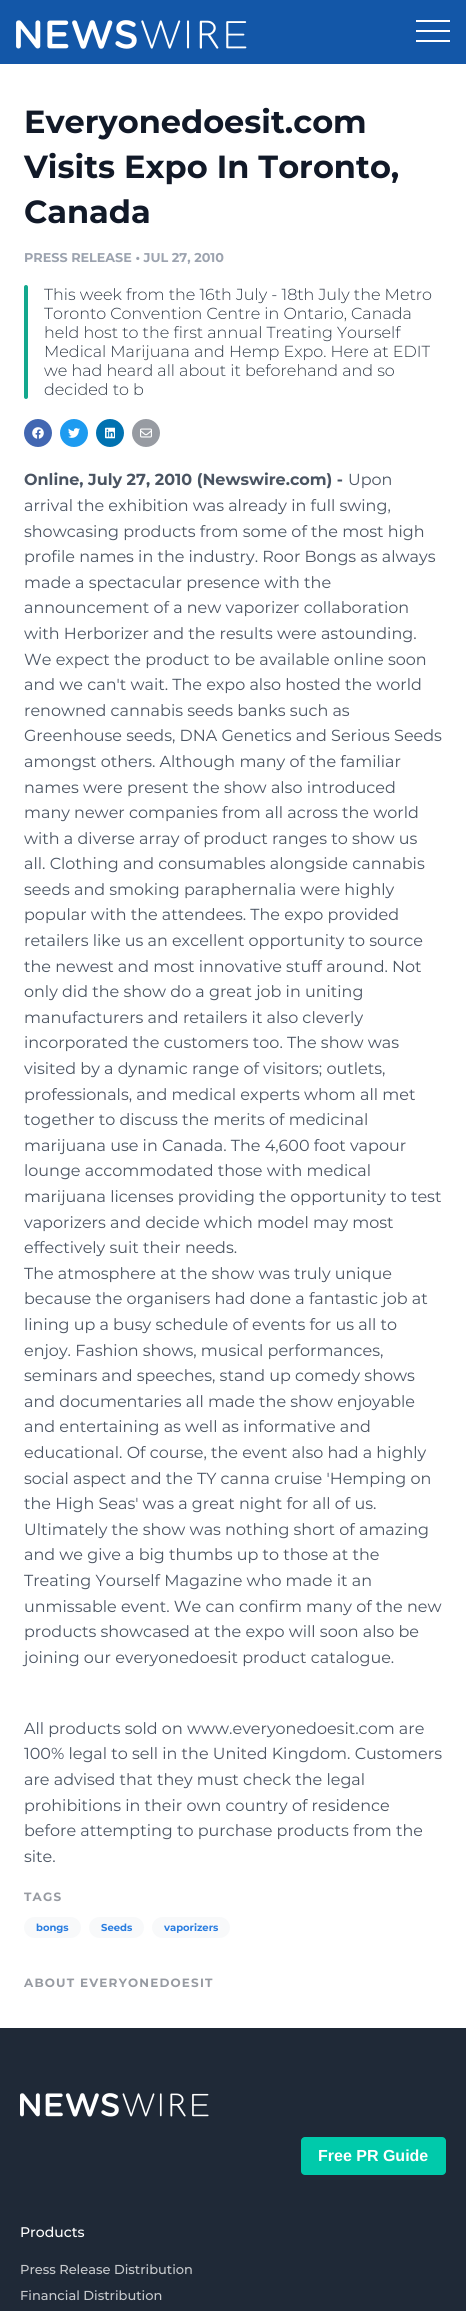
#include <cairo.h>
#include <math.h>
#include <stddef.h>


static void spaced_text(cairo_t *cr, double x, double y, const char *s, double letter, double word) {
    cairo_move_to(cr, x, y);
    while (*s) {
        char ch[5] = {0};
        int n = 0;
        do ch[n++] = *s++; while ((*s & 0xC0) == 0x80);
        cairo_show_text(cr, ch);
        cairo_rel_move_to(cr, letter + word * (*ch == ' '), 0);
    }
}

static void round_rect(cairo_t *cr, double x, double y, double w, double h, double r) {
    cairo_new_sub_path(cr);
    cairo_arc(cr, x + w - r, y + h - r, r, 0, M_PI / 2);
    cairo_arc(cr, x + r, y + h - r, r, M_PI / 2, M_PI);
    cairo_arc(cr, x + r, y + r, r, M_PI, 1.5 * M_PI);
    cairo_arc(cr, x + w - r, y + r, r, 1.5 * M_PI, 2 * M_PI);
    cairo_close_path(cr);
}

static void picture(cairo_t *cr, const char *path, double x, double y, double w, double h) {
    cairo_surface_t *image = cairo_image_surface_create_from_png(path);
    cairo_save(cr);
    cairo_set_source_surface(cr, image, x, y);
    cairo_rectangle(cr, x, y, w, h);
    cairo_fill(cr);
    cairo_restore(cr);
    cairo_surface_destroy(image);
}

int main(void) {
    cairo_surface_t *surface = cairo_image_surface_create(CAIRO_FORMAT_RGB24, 466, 2311);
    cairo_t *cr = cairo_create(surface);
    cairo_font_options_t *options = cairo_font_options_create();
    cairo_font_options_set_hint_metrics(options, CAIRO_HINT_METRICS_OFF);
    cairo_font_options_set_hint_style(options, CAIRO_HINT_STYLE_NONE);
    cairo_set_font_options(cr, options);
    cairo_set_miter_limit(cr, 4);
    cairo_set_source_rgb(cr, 1, 1, 1);
    cairo_paint(cr);
    cairo_set_source_rgb(cr, 0.075, 0.341, 0.659);
    cairo_rectangle(cr, 0, 0, 466, 64);
    cairo_fill(cr);
    picture(cr, "img1.png", 16, 20, 231, 29);
    cairo_set_source_rgb(cr, 1, 1, 1);
    cairo_rectangle(cr, 416, 30, 34, 2);
    cairo_fill(cr);
    cairo_rectangle(cr, 416, 20, 34, 2);
    cairo_fill(cr);
    cairo_rectangle(cr, 416, 40, 34, 2);
    cairo_fill(cr);
    cairo_select_font_face(cr, "Montserrat", CAIRO_FONT_SLANT_NORMAL, CAIRO_FONT_WEIGHT_BOLD);
    cairo_set_font_size(cr, 32);
    cairo_set_source_rgb(cr, 0.067, 0.098, 0.157);
    cairo_move_to(cr, 24, 133);
    cairo_show_text(cr, "Everyonedoesit.com");
    cairo_move_to(cr, 24, 178);
    cairo_show_text(cr, "Visits Expo In Toronto,");
    cairo_move_to(cr, 24, 223);
    cairo_show_text(cr, "Canada");
    cairo_set_font_size(cr, 12.75);
    cairo_set_source_rgb(cr, 0.612, 0.639, 0.686);
    cairo_move_to(cr, 24, 262);
    cairo_show_text(cr, "PRESS RELEASE • JUL 27, 2010");
    cairo_set_source_rgb(cr, 0.075, 0.659, 0.557);
    round_rect(cr, 24, 285, 4, 114, 2);
    cairo_fill(cr);
    cairo_select_font_face(cr, "Montserrat Light", CAIRO_FONT_SLANT_NORMAL, CAIRO_FONT_WEIGHT_NORMAL);
    cairo_set_font_size(cr, 16);
    cairo_set_source_rgb(cr, 0.173, 0.216, 0.267);
    cairo_move_to(cr, 44, 300);
    cairo_show_text(cr, "This week from the 16th July - 18th July the Metro");
    cairo_move_to(cr, 44, 319);
    cairo_show_text(cr, "Toronto Convention Centre in Ontario, Canada");
    cairo_move_to(cr, 44, 338);
    cairo_show_text(cr, "held host to the first annual Treating Yourself");
    cairo_move_to(cr, 44, 357);
    cairo_show_text(cr, "Medical Marijuana and Hemp Expo. Here at EDIT");
    cairo_move_to(cr, 44, 376);
    cairo_show_text(cr, "we had heard all about it beforehand and so");
    cairo_move_to(cr, 44, 395);
    cairo_show_text(cr, "decided to b");
    cairo_set_source_rgb(cr, 0.259, 0.404, 0.698);
    cairo_new_path(cr);
    cairo_arc(cr, 38, 433, 14, 0, 2 * M_PI);
    cairo_fill(cr);
    picture(cr, "img2.png", 32, 427, 12, 12);
    cairo_set_source_rgb(cr, 0.114, 0.608, 0.941);
    cairo_arc(cr, 74, 433, 14, 0, 2 * M_PI);
    cairo_fill(cr);
    picture(cr, "img3.png", 68, 428, 12, 10);
    cairo_set_source_rgb(cr, 0, 0.447, 0.694);
    cairo_arc(cr, 110, 433, 14, 0, 2 * M_PI);
    cairo_fill(cr);
    picture(cr, "img4.png", 105, 427, 10, 12);
    cairo_set_source_rgb(cr, 0.592, 0.608, 0.635);
    cairo_arc(cr, 146, 433, 14, 0, 2 * M_PI);
    cairo_fill(cr);
    picture(cr, "img5.png", 140, 428, 12, 10);
    cairo_select_font_face(cr, "Montserrat", CAIRO_FONT_SLANT_NORMAL, CAIRO_FONT_WEIGHT_BOLD);
    cairo_set_source_rgb(cr, 0.294, 0.333, 0.388);
    cairo_move_to(cr, 24, 485);
    cairo_show_text(cr, "Online, July 27, 2010 (Newswire.com) -");
    cairo_select_font_face(cr, "Montserrat", CAIRO_FONT_SLANT_NORMAL, CAIRO_FONT_WEIGHT_NORMAL);
    cairo_move_to(cr, 348, 485);
    cairo_show_text(cr, "Upon");
    cairo_move_to(cr, 24, 511);
    cairo_show_text(cr, "arrival the exhibition was already in full swing,");
    cairo_move_to(cr, 24, 537);
    cairo_show_text(cr, "showcasing products from some of the most high");
    cairo_move_to(cr, 24, 562);
    cairo_show_text(cr, "profile names in the industry. Roor Bongs as always");
    cairo_move_to(cr, 24, 588);
    cairo_show_text(cr, "made a spectacular presence with the");
    cairo_move_to(cr, 24, 613);
    cairo_show_text(cr, "announcement of a new vaporizer collaboration");
    cairo_move_to(cr, 24, 639);
    cairo_show_text(cr, "with Herborizer and the results were astounding.");
    cairo_move_to(cr, 24, 665);
    cairo_show_text(cr, "We expect the product to be available online soon");
    cairo_move_to(cr, 24, 690);
    cairo_show_text(cr, "and we can't wait. The expo also hosted the world");
    cairo_move_to(cr, 24, 716);
    cairo_show_text(cr, "renowned cannabis seeds banks such as");
    cairo_move_to(cr, 24, 741);
    cairo_show_text(cr, "Greenhouse seeds, DNA Genetics and Serious Seeds");
    cairo_move_to(cr, 24, 767);
    cairo_show_text(cr, "amongst others. Although many of the familiar");
    cairo_move_to(cr, 24, 793);
    cairo_show_text(cr, "names were present the show also introduced");
    cairo_move_to(cr, 24, 818);
    cairo_show_text(cr, "many newer companies from all across the world");
    cairo_move_to(cr, 24, 844);
    cairo_show_text(cr, "with a diverse array of product ranges to show us");
    cairo_move_to(cr, 24, 869);
    cairo_show_text(cr, "all. Clothing and consumables alongside cannabis");
    cairo_move_to(cr, 24, 895);
    cairo_show_text(cr, "seeds and smoking paraphernalia were highly");
    cairo_move_to(cr, 24, 920);
    cairo_show_text(cr, "popular with the attendees. The expo provided");
    cairo_move_to(cr, 24, 946);
    cairo_show_text(cr, "retailers like us an excellent opportunity to source");
    cairo_move_to(cr, 24, 972);
    cairo_show_text(cr, "the newest and most innovative stuff around. Not");
    cairo_move_to(cr, 24, 997);
    cairo_show_text(cr, "only did the show do a great job in uniting");
    cairo_move_to(cr, 24, 1023);
    cairo_show_text(cr, "manufacturers and retailers it also cleverly");
    cairo_move_to(cr, 24, 1048);
    cairo_show_text(cr, "incorporated the customers too. The show was");
    cairo_move_to(cr, 24, 1074);
    cairo_show_text(cr, "visited by a dynamic range of visitors; outlets,");
    cairo_move_to(cr, 24, 1100);
    cairo_show_text(cr, "professionals, and medical experts whom all met");
    cairo_move_to(cr, 24, 1125);
    cairo_show_text(cr, "together to discuss the merits of medicinal");
    cairo_move_to(cr, 24, 1151);
    cairo_show_text(cr, "marijuana use in Canada. The 4,600 foot vapour");
    cairo_move_to(cr, 24, 1176);
    cairo_show_text(cr, "lounge accommodated those with medical");
    cairo_move_to(cr, 24, 1202);
    cairo_show_text(cr, "marijuana licenses providing the opportunity to test");
    cairo_move_to(cr, 24, 1228);
    cairo_show_text(cr, "vaporizers and decide which model may most");
    cairo_move_to(cr, 24, 1253);
    cairo_show_text(cr, "effectively suit their needs.");
    cairo_move_to(cr, 24, 1279);
    cairo_show_text(cr, "The atmosphere at the show was truly unique");
    cairo_move_to(cr, 24, 1304);
    cairo_show_text(cr, "because the organisers had done a fantastic job at");
    cairo_move_to(cr, 24, 1330);
    cairo_show_text(cr, "lining up a busy schedule of events for us all to");
    cairo_move_to(cr, 24, 1356);
    cairo_show_text(cr, "enjoy. Fashion shows, musical performances,");
    cairo_move_to(cr, 24, 1381);
    cairo_show_text(cr, "seminars and speeches, stand up comedy shows");
    cairo_move_to(cr, 24, 1407);
    cairo_show_text(cr, "and documentaries all made the show enjoyable");
    cairo_move_to(cr, 24, 1432);
    cairo_show_text(cr, "and entertaining as well as informative and");
    cairo_move_to(cr, 24, 1458);
    cairo_show_text(cr, "educational. Of course, the event also had a highly");
    cairo_move_to(cr, 24, 1484);
    cairo_show_text(cr, "social aspect and the TY canna cruise 'Hemping on");
    cairo_move_to(cr, 24, 1509);
    cairo_show_text(cr, "the High Seas' was a great night for all of us.");
    cairo_move_to(cr, 24, 1535);
    cairo_show_text(cr, "Ultimately the show was nothing short of amazing");
    cairo_move_to(cr, 24, 1560);
    cairo_show_text(cr, "and we give a big thumbs up to those at the");
    cairo_move_to(cr, 24, 1586);
    cairo_show_text(cr, "Treating Yourself Magazine who made it an");
    cairo_move_to(cr, 24, 1612);
    cairo_show_text(cr, "unmissable event. We can confirm many of the new");
    cairo_move_to(cr, 24, 1637);
    cairo_show_text(cr, "products showcased at the expo will soon also be");
    cairo_move_to(cr, 24, 1663);
    cairo_show_text(cr, "joining our everyonedoesit product catalogue.");
    cairo_move_to(cr, 24, 1734);
    cairo_show_text(cr, "All products sold on www.everyonedoesit.com are");
    cairo_move_to(cr, 24, 1759);
    cairo_show_text(cr, "100% legal to sell in the United Kingdom. Customers");
    cairo_move_to(cr, 24, 1785);
    cairo_show_text(cr, "are advised that they must check the legal");
    cairo_move_to(cr, 24, 1811);
    cairo_show_text(cr, "prohibitions in their own country of residence");
    cairo_move_to(cr, 24, 1836);
    cairo_show_text(cr, "before attempting to purchase products from the");
    cairo_move_to(cr, 24, 1862);
    cairo_show_text(cr, "site.");
    cairo_select_font_face(cr, "Montserrat", CAIRO_FONT_SLANT_NORMAL, CAIRO_FONT_WEIGHT_BOLD);
    cairo_set_font_size(cr, 12);
    cairo_set_source_rgb(cr, 0.592, 0.608, 0.635);
    spaced_text(cr, 24, 1901, "TAGS", 1.2, 0);
    cairo_set_source_rgb(cr, 0.969, 0.973, 0.98);
    round_rect(cr, 24, 1917, 57, 21, 10.5);
    cairo_fill(cr);
    cairo_set_font_size(cr, 10);
    cairo_set_source_rgb(cr, 0.165, 0.49, 0.875);
    cairo_move_to(cr, 36, 1931);
    cairo_show_text(cr, "bongs");
    cairo_set_source_rgb(cr, 0.969, 0.973, 0.98);
    round_rect(cr, 89, 1917, 55, 21, 10.5);
    cairo_fill(cr);
    cairo_set_source_rgb(cr, 0.165, 0.49, 0.875);
    cairo_move_to(cr, 101, 1931);
    cairo_show_text(cr, "Seeds");
    cairo_set_source_rgb(cr, 0.969, 0.973, 0.98);
    round_rect(cr, 152, 1917, 78, 21, 10.5);
    cairo_fill(cr);
    cairo_set_source_rgb(cr, 0.165, 0.49, 0.875);
    cairo_move_to(cr, 164, 1931);
    cairo_show_text(cr, "vaporizers");
    cairo_set_font_size(cr, 12);
    cairo_set_source_rgb(cr, 0.592, 0.608, 0.635);
    spaced_text(cr, 24, 1987, "ABOUT EVERYONEDOESIT", 1.2, 0);
    cairo_set_source_rgb(cr, 0.122, 0.161, 0.216);
    cairo_rectangle(cr, 0, 2028, 466, 283);
    cairo_fill(cr);
    picture(cr, "img6.png", 20, 2093, 189, 24);
    cairo_set_source_rgb(cr, 0, 0.792, 0.671);
    round_rect(cr, 301, 2137, 145, 38, 4);
    cairo_fill(cr);
    cairo_select_font_face(cr, "Liberation Sans", CAIRO_FONT_SLANT_NORMAL, CAIRO_FONT_WEIGHT_BOLD);
    cairo_set_font_size(cr, 16);
    cairo_set_source_rgb(cr, 1, 1, 1);
    cairo_move_to(cr, 318, 2161);
    cairo_show_text(cr, "Free PR Guide");
    cairo_select_font_face(cr, "Montserrat Medium", CAIRO_FONT_SLANT_NORMAL, CAIRO_FONT_WEIGHT_NORMAL);
    cairo_set_font_size(cr, 14);
    cairo_move_to(cr, 20, 2237);
    cairo_show_text(cr, "Products");
    cairo_set_font_size(cr, 13);
    cairo_set_source_rgb(cr, 0.78, 0.792, 0.804);
    cairo_move_to(cr, 20, 2274);
    cairo_show_text(cr, "Press Release Distribution");
    cairo_move_to(cr, 20, 2300);
    cairo_show_text(cr, "Financial Distribution");
    cairo_surface_write_to_png(surface, "page.png");
    cairo_font_options_destroy(options);
    cairo_destroy(cr);
    cairo_surface_destroy(surface);
    return 0;
}
